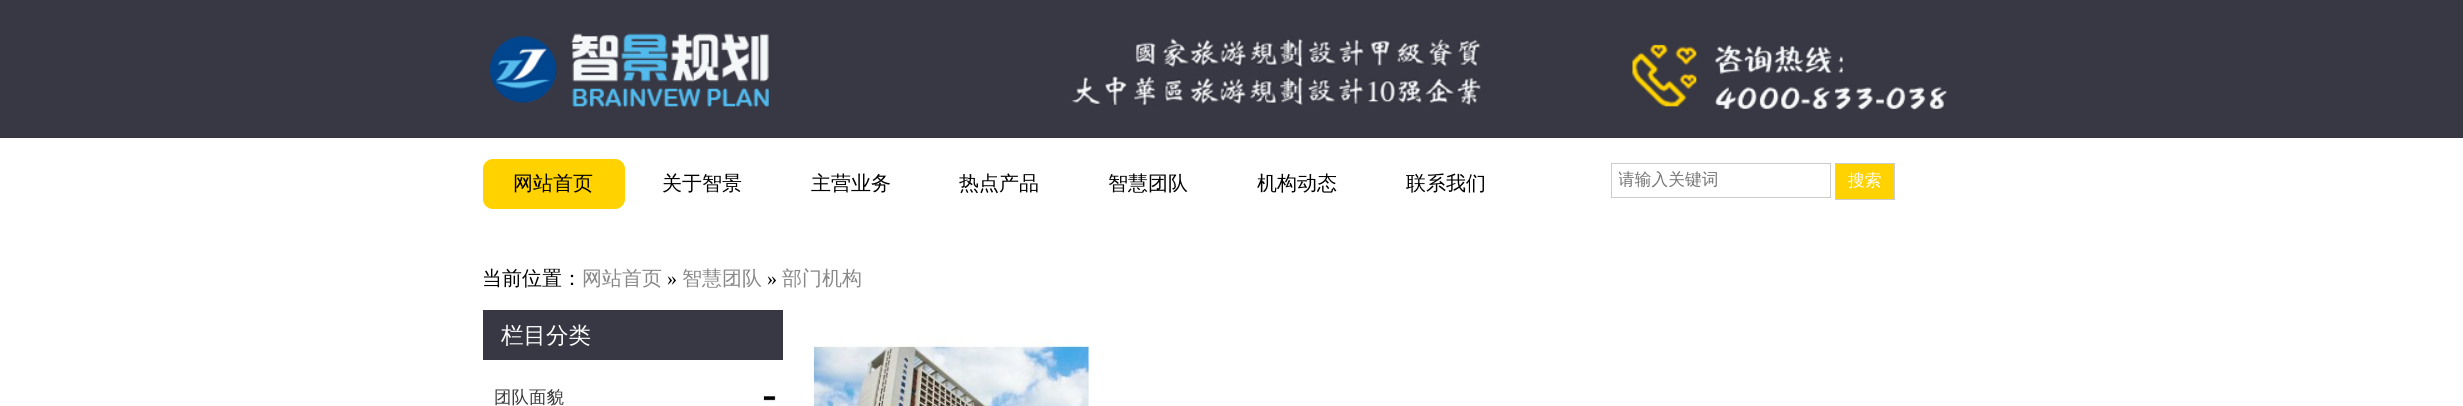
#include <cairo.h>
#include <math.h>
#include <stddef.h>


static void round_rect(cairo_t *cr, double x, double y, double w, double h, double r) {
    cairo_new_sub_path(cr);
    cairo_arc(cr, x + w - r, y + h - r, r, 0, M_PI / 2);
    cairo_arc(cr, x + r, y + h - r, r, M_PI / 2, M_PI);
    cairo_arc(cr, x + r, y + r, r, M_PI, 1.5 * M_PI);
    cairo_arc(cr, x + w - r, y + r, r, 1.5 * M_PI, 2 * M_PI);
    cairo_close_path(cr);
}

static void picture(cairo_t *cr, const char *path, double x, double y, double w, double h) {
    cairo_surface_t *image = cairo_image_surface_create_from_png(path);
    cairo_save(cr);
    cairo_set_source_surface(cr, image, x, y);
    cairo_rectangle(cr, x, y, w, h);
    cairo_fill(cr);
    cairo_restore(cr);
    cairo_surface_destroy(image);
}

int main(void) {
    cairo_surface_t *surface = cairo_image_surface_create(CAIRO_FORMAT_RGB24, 2463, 406);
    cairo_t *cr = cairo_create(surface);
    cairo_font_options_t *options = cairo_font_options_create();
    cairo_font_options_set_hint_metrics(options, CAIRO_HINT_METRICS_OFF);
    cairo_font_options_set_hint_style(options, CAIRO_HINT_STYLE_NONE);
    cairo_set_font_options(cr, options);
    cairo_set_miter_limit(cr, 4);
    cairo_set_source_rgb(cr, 1, 1, 1);
    cairo_paint(cr);
    cairo_set_source_rgb(cr, 0.22, 0.22, 0.267);
    cairo_rectangle(cr, 0, 0, 2463, 138);
    cairo_fill(cr);
    picture(cr, "img1.png", 489, 33, 280, 74);
    picture(cr, "img2.png", 1071, 38, 410, 69);
    picture(cr, "img3.png", 1632, 44, 65, 63);
    picture(cr, "img4.png", 1714, 44, 233, 67);
    cairo_set_source_rgb(cr, 1, 0.824, 0);
    round_rect(cr, 483, 159, 142, 50, 10);
    cairo_fill(cr);
    cairo_select_font_face(cr, "WenQuanYi Zen Hei Medium", CAIRO_FONT_SLANT_NORMAL, CAIRO_FONT_WEIGHT_NORMAL);
    cairo_set_font_size(cr, 20);
    cairo_set_source_rgb(cr, 0, 0, 0);
    cairo_move_to(cr, 513, 190);
    cairo_show_text(cr, "网站首页");
    cairo_move_to(cr, 662, 190);
    cairo_show_text(cr, "关于智景");
    cairo_move_to(cr, 811, 190);
    cairo_show_text(cr, "主营业务");
    cairo_move_to(cr, 959, 190);
    cairo_show_text(cr, "热点产品");
    cairo_move_to(cr, 1108, 190);
    cairo_show_text(cr, "智慧团队");
    cairo_move_to(cr, 1257, 190);
    cairo_show_text(cr, "机构动态");
    cairo_move_to(cr, 1406, 190);
    cairo_show_text(cr, "联系我们");
    cairo_rectangle(cr, 1611.5, 163.5, 219, 34);
    cairo_set_source_rgb(cr, 0.8, 0.8, 0.8);
    cairo_set_line_width(cr, 1);
    cairo_stroke(cr);
    cairo_save(cr);
    cairo_rectangle(cr, 1619, 169, 205, 22);
    cairo_clip(cr);
    cairo_set_font_size(cr, 16.75);
    cairo_set_source_rgb(cr, 0.459, 0.459, 0.459);
    cairo_move_to(cr, 1618, 185);
    cairo_show_text(cr, "请输入关键词");
    cairo_restore(cr);
    cairo_set_source_rgb(cr, 1, 0.824, 0);
    cairo_rectangle(cr, 1835.5, 163.5, 59, 36);
    cairo_fill_preserve(cr);
    cairo_set_source_rgb(cr, 0.8, 0.8, 0.8);
    cairo_stroke(cr);
    cairo_set_font_size(cr, 16.75);
    cairo_set_source_rgb(cr, 1, 1, 1);
    cairo_move_to(cr, 1848, 186);
    cairo_show_text(cr, "搜索");
    cairo_set_font_size(cr, 20);
    cairo_set_source_rgb(cr, 0, 0, 0);
    cairo_move_to(cr, 482, 285);
    cairo_show_text(cr, "当前位置：");
    cairo_set_source_rgb(cr, 0.533, 0.533, 0.533);
    cairo_move_to(cr, 582, 285);
    cairo_show_text(cr, "网站首页");
    cairo_select_font_face(cr, "Liberation Serif", CAIRO_FONT_SLANT_NORMAL, CAIRO_FONT_WEIGHT_NORMAL);
    cairo_set_source_rgb(cr, 0, 0, 0);
    cairo_move_to(cr, 667, 285);
    cairo_show_text(cr, "»");
    cairo_select_font_face(cr, "WenQuanYi Zen Hei Medium", CAIRO_FONT_SLANT_NORMAL, CAIRO_FONT_WEIGHT_NORMAL);
    cairo_set_source_rgb(cr, 0.533, 0.533, 0.533);
    cairo_move_to(cr, 682, 285);
    cairo_show_text(cr, "智慧团队");
    cairo_select_font_face(cr, "Liberation Serif", CAIRO_FONT_SLANT_NORMAL, CAIRO_FONT_WEIGHT_NORMAL);
    cairo_set_source_rgb(cr, 0, 0, 0);
    cairo_move_to(cr, 767, 285);
    cairo_show_text(cr, "»");
    cairo_select_font_face(cr, "WenQuanYi Zen Hei Medium", CAIRO_FONT_SLANT_NORMAL, CAIRO_FONT_WEIGHT_NORMAL);
    cairo_set_source_rgb(cr, 0.533, 0.533, 0.533);
    cairo_move_to(cr, 782, 285);
    cairo_show_text(cr, "部门机构");
    cairo_set_source_rgb(cr, 0.22, 0.22, 0.267);
    cairo_rectangle(cr, 483, 310, 300, 50);
    cairo_fill(cr);
    cairo_set_font_size(cr, 22.5);
    cairo_set_source_rgb(cr, 1, 1, 1);
    cairo_move_to(cr, 501, 343);
    cairo_show_text(cr, "栏目分类");
    cairo_set_font_size(cr, 17.5);
    cairo_set_source_rgb(cr, 0.227, 0.227, 0.227);
    cairo_move_to(cr, 494, 403);
    cairo_show_text(cr, "团队面貌");
    picture(cr, "img5.png", 763, 396, 13, 5);
    picture(cr, "img6.png", 813, 337, 276, 69);
    cairo_surface_write_to_png(surface, "page.png");
    cairo_font_options_destroy(options);
    cairo_destroy(cr);
    cairo_surface_destroy(surface);
    return 0;
}
